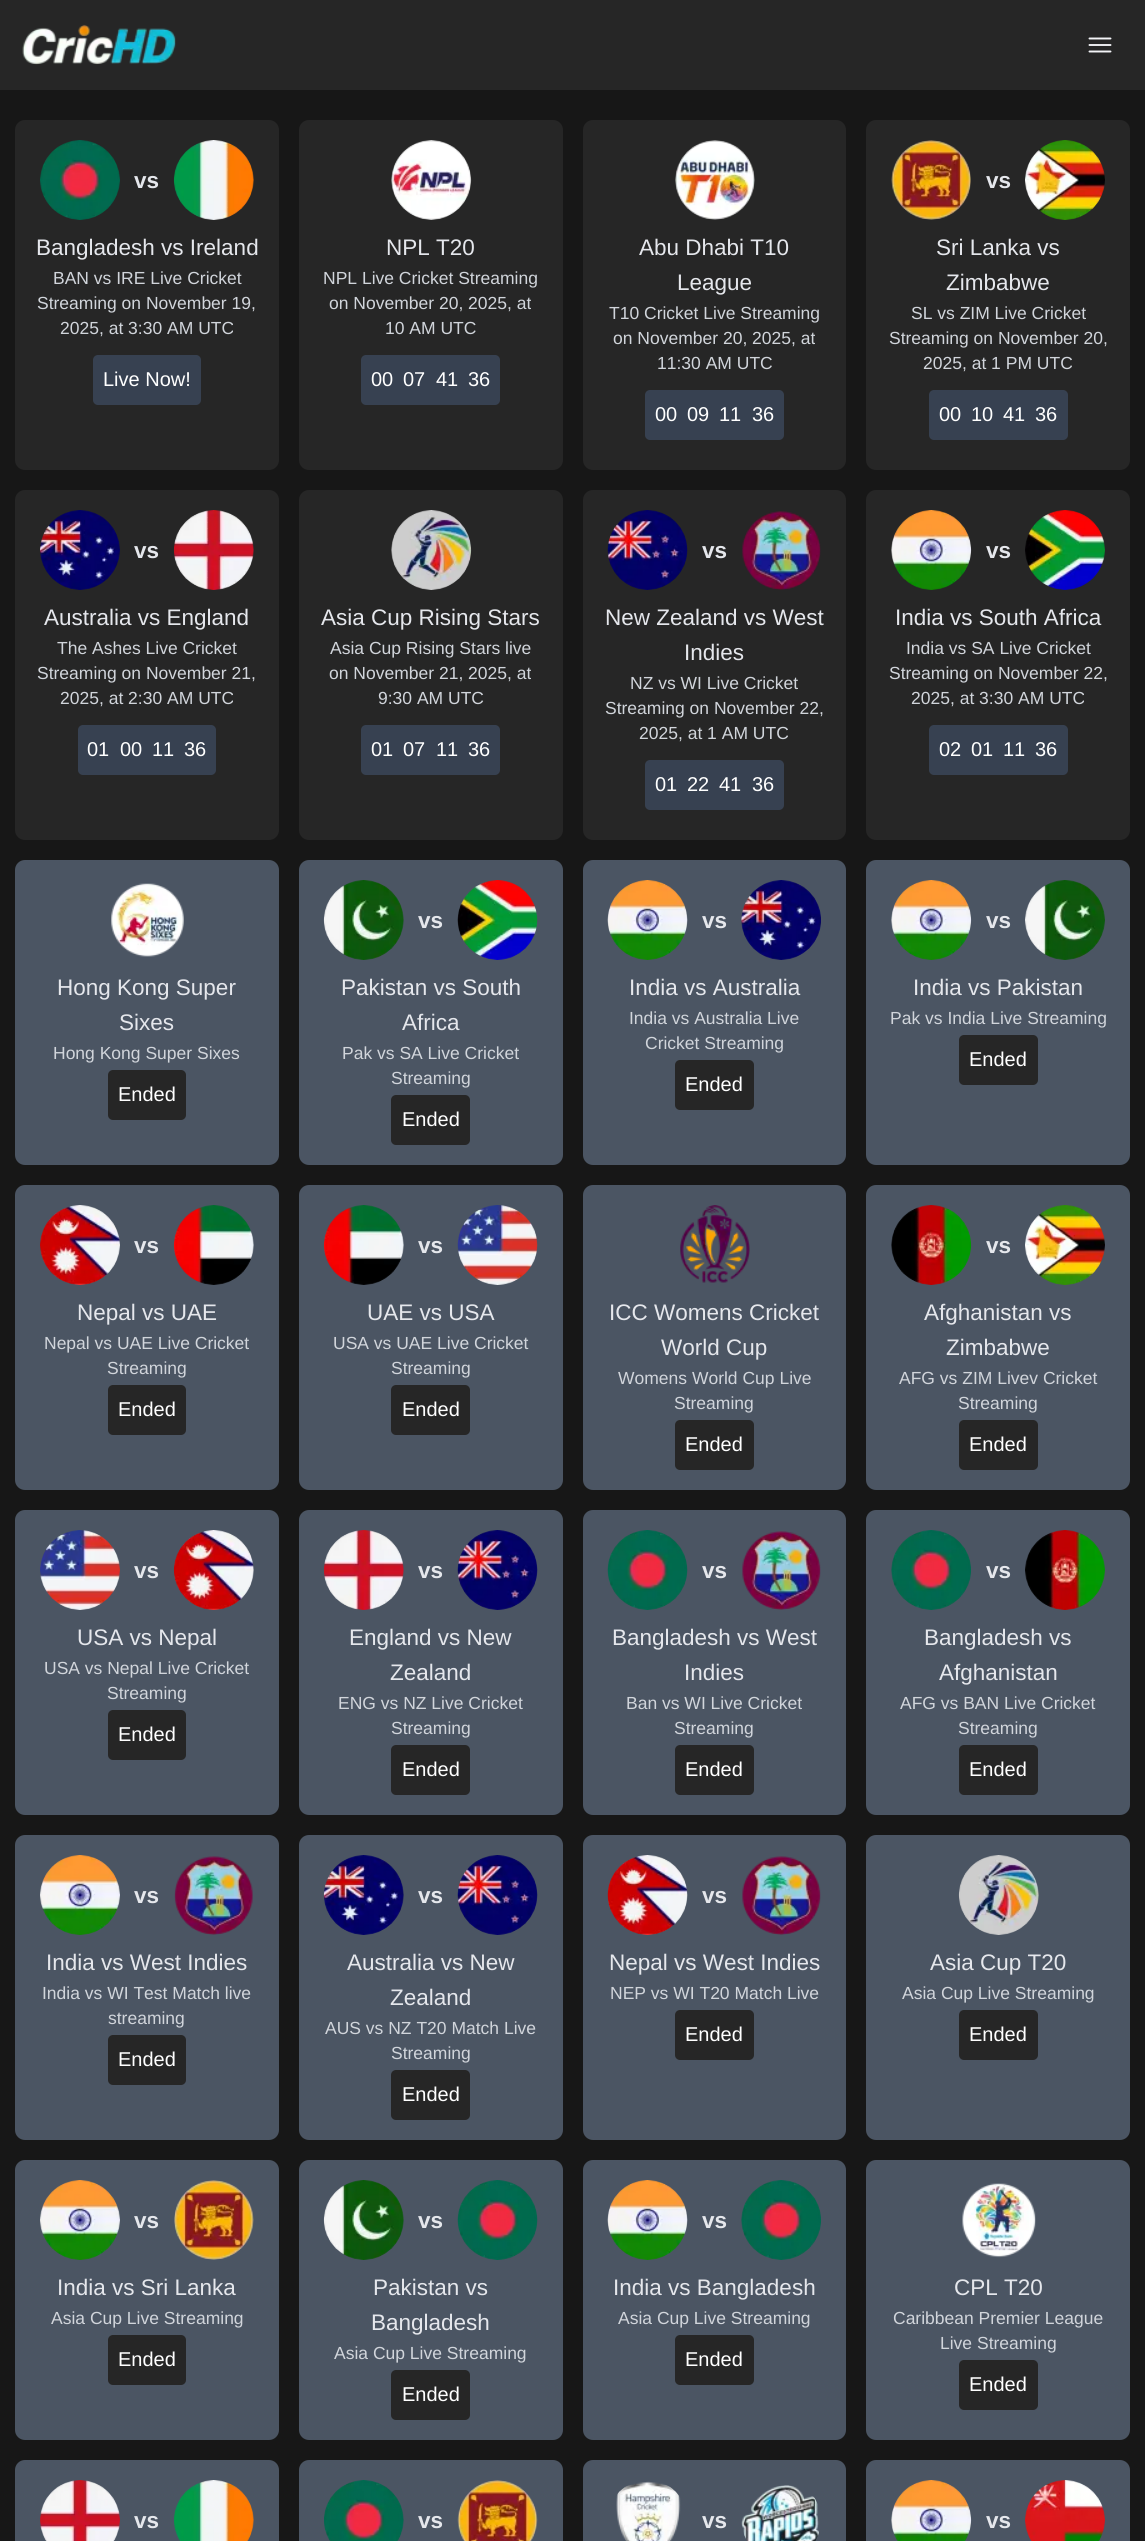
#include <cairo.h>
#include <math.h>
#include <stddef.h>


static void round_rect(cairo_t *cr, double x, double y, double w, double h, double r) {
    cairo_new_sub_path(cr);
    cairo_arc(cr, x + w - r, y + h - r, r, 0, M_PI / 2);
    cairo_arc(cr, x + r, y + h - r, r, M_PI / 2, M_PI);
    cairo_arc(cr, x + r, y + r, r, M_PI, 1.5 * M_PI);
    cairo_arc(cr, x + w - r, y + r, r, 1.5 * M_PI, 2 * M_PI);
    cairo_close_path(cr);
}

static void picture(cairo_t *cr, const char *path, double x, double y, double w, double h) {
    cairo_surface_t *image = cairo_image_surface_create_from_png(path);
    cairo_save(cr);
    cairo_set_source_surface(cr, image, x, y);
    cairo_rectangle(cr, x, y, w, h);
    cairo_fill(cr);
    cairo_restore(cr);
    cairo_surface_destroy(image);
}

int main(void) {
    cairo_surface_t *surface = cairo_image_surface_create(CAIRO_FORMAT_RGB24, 1145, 2541);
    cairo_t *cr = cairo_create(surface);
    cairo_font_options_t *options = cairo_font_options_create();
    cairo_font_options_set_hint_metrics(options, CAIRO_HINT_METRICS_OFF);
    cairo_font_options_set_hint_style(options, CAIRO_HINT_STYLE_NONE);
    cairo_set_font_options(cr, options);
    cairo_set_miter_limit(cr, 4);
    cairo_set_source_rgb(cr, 0.09, 0.09, 0.09);
    cairo_paint(cr);
    cairo_set_source_rgb(cr, 0.149, 0.149, 0.149);
    cairo_rectangle(cr, 0, 0, 1145, 90);
    cairo_fill(cr);
    picture(cr, "img1.png", 22, 24, 154, 41);
    cairo_new_path(cr);
    cairo_move_to(cr, 1089.5, 38.5);
    cairo_line_to(cr, 1110.5, 38.5);
    cairo_move_to(cr, 1089.5, 45);
    cairo_line_to(cr, 1110.5, 45);
    cairo_move_to(cr, 1089.5, 51.5);
    cairo_line_to(cr, 1110.5, 51.5);
    cairo_set_source_rgb(cr, 0.953, 0.957, 0.965);
    cairo_set_line_width(cr, 1.9);
    cairo_set_line_cap(cr, CAIRO_LINE_CAP_ROUND);
    cairo_set_line_join(cr, CAIRO_LINE_JOIN_ROUND);
    cairo_stroke(cr);
    cairo_set_source_rgb(cr, 0.149, 0.149, 0.149);
    round_rect(cr, 15, 120, 264, 350, 10);
    cairo_fill(cr);
    picture(cr, "img2.png", 40, 140, 80, 80);
    cairo_select_font_face(cr, "Liberation Sans", CAIRO_FONT_SLANT_NORMAL, CAIRO_FONT_WEIGHT_BOLD);
    cairo_set_font_size(cr, 22.5);
    cairo_set_source_rgb(cr, 0.898, 0.906, 0.922);
    cairo_move_to(cr, 134, 188);
    cairo_show_text(cr, "vs");
    picture(cr, "img3.png", 173, 140, 81, 80);
    cairo_select_font_face(cr, "Liberation Sans", CAIRO_FONT_SLANT_NORMAL, CAIRO_FONT_WEIGHT_NORMAL);
    cairo_move_to(cr, 36, 255);
    cairo_show_text(cr, "Bangladesh vs Ireland");
    cairo_set_font_size(cr, 17.5);
    cairo_set_source_rgb(cr, 0.82, 0.835, 0.859);
    cairo_move_to(cr, 53, 284);
    cairo_show_text(cr, "BAN vs IRE Live Cricket");
    cairo_move_to(cr, 37, 309);
    cairo_show_text(cr, "Streaming on November 19,");
    cairo_move_to(cr, 60, 334);
    cairo_show_text(cr, "2025, at 3:30 AM UTC");
    cairo_set_source_rgb(cr, 0.216, 0.255, 0.318);
    round_rect(cr, 93, 355, 108, 50, 5);
    cairo_fill(cr);
    cairo_set_font_size(cr, 20);
    cairo_set_source_rgb(cr, 1, 1, 1);
    cairo_move_to(cr, 103, 386);
    cairo_show_text(cr, "Live Now!");
    cairo_set_source_rgb(cr, 0.149, 0.149, 0.149);
    round_rect(cr, 299, 120, 264, 350, 10);
    cairo_fill(cr);
    picture(cr, "img4.png", 391, 140, 81, 80);
    cairo_set_font_size(cr, 22.5);
    cairo_set_source_rgb(cr, 0.898, 0.906, 0.922);
    cairo_move_to(cr, 386, 255);
    cairo_show_text(cr, "NPL T20");
    cairo_set_font_size(cr, 17.5);
    cairo_set_source_rgb(cr, 0.82, 0.835, 0.859);
    cairo_move_to(cr, 323, 284);
    cairo_show_text(cr, "NPL Live Cricket Streaming");
    cairo_move_to(cr, 329, 309);
    cairo_show_text(cr, "on November 20, 2025, at");
    cairo_move_to(cr, 385, 334);
    cairo_show_text(cr, "10 AM UTC");
    cairo_set_source_rgb(cr, 0.216, 0.255, 0.318);
    round_rect(cr, 361, 355, 139, 50, 5);
    cairo_fill(cr);
    cairo_set_font_size(cr, 20);
    cairo_set_source_rgb(cr, 1, 1, 1);
    cairo_move_to(cr, 371, 386);
    cairo_show_text(cr, "00");
    cairo_move_to(cr, 403, 386);
    cairo_show_text(cr, "07");
    cairo_move_to(cr, 436, 386);
    cairo_show_text(cr, "41");
    cairo_move_to(cr, 468, 386);
    cairo_show_text(cr, "36");
    cairo_set_source_rgb(cr, 0.149, 0.149, 0.149);
    round_rect(cr, 583, 120, 263, 350, 10);
    cairo_fill(cr);
    picture(cr, "img5.png", 675, 140, 80, 80);
    cairo_set_font_size(cr, 22.5);
    cairo_set_source_rgb(cr, 0.898, 0.906, 0.922);
    cairo_move_to(cr, 639, 255);
    cairo_show_text(cr, "Abu Dhabi T10");
    cairo_move_to(cr, 677, 290);
    cairo_show_text(cr, "League");
    cairo_set_font_size(cr, 17.5);
    cairo_set_source_rgb(cr, 0.82, 0.835, 0.859);
    cairo_move_to(cr, 609, 319);
    cairo_show_text(cr, "T10 Cricket Live Streaming");
    cairo_move_to(cr, 613, 344);
    cairo_show_text(cr, "on November 20, 2025, at");
    cairo_move_to(cr, 657, 369);
    cairo_show_text(cr, "11:30 AM UTC");
    cairo_set_source_rgb(cr, 0.216, 0.255, 0.318);
    round_rect(cr, 645, 390, 139, 50, 5);
    cairo_fill(cr);
    cairo_set_font_size(cr, 20);
    cairo_set_source_rgb(cr, 1, 1, 1);
    cairo_move_to(cr, 655, 421);
    cairo_show_text(cr, "00");
    cairo_move_to(cr, 687, 421);
    cairo_show_text(cr, "09");
    cairo_move_to(cr, 719, 421);
    cairo_show_text(cr, "11");
    cairo_move_to(cr, 752, 421);
    cairo_show_text(cr, "36");
    cairo_set_source_rgb(cr, 0.149, 0.149, 0.149);
    round_rect(cr, 866, 120, 264, 350, 10);
    cairo_fill(cr);
    picture(cr, "img6.png", 891, 140, 80, 80);
    cairo_select_font_face(cr, "Liberation Sans", CAIRO_FONT_SLANT_NORMAL, CAIRO_FONT_WEIGHT_BOLD);
    cairo_set_font_size(cr, 22.5);
    cairo_set_source_rgb(cr, 0.898, 0.906, 0.922);
    cairo_move_to(cr, 986, 188);
    cairo_show_text(cr, "vs");
    picture(cr, "img7.png", 1025, 140, 80, 80);
    cairo_select_font_face(cr, "Liberation Sans", CAIRO_FONT_SLANT_NORMAL, CAIRO_FONT_WEIGHT_NORMAL);
    cairo_move_to(cr, 936, 255);
    cairo_show_text(cr, "Sri Lanka vs");
    cairo_move_to(cr, 946, 290);
    cairo_show_text(cr, "Zimbabwe");
    cairo_set_font_size(cr, 17.5);
    cairo_set_source_rgb(cr, 0.82, 0.835, 0.859);
    cairo_move_to(cr, 911, 319);
    cairo_show_text(cr, "SL vs ZIM Live Cricket");
    cairo_move_to(cr, 889, 344);
    cairo_show_text(cr, "Streaming on November 20,");
    cairo_move_to(cr, 923, 369);
    cairo_show_text(cr, "2025, at 1 PM UTC");
    cairo_set_source_rgb(cr, 0.216, 0.255, 0.318);
    round_rect(cr, 929, 390, 139, 50, 5);
    cairo_fill(cr);
    cairo_set_font_size(cr, 20);
    cairo_set_source_rgb(cr, 1, 1, 1);
    cairo_move_to(cr, 939, 421);
    cairo_show_text(cr, "00");
    cairo_move_to(cr, 971, 421);
    cairo_show_text(cr, "10");
    cairo_move_to(cr, 1003, 421);
    cairo_show_text(cr, "41");
    cairo_move_to(cr, 1035, 421);
    cairo_show_text(cr, "36");
    cairo_set_source_rgb(cr, 0.149, 0.149, 0.149);
    round_rect(cr, 15, 490, 264, 350, 10);
    cairo_fill(cr);
    picture(cr, "img8.png", 40, 510, 80, 80);
    cairo_select_font_face(cr, "Liberation Sans", CAIRO_FONT_SLANT_NORMAL, CAIRO_FONT_WEIGHT_BOLD);
    cairo_set_font_size(cr, 22.5);
    cairo_set_source_rgb(cr, 0.898, 0.906, 0.922);
    cairo_move_to(cr, 134, 558);
    cairo_show_text(cr, "vs");
    picture(cr, "img9.png", 173, 510, 81, 80);
    cairo_select_font_face(cr, "Liberation Sans", CAIRO_FONT_SLANT_NORMAL, CAIRO_FONT_WEIGHT_NORMAL);
    cairo_move_to(cr, 44, 625);
    cairo_show_text(cr, "Australia vs England");
    cairo_set_font_size(cr, 17.5);
    cairo_set_source_rgb(cr, 0.82, 0.835, 0.859);
    cairo_move_to(cr, 57, 654);
    cairo_show_text(cr, "The Ashes Live Cricket");
    cairo_move_to(cr, 37, 679);
    cairo_show_text(cr, "Streaming on November 21,");
    cairo_move_to(cr, 60, 704);
    cairo_show_text(cr, "2025, at 2:30 AM UTC");
    cairo_set_source_rgb(cr, 0.216, 0.255, 0.318);
    round_rect(cr, 78, 725, 138, 50, 5);
    cairo_fill(cr);
    cairo_set_font_size(cr, 20);
    cairo_set_source_rgb(cr, 1, 1, 1);
    cairo_move_to(cr, 87, 756);
    cairo_show_text(cr, "01");
    cairo_move_to(cr, 120, 756);
    cairo_show_text(cr, "00");
    cairo_move_to(cr, 152, 756);
    cairo_show_text(cr, "11");
    cairo_move_to(cr, 184, 756);
    cairo_show_text(cr, "36");
    cairo_set_source_rgb(cr, 0.149, 0.149, 0.149);
    round_rect(cr, 299, 490, 264, 350, 10);
    cairo_fill(cr);
    picture(cr, "img10.png", 391, 510, 81, 80);
    cairo_set_font_size(cr, 22.5);
    cairo_set_source_rgb(cr, 0.898, 0.906, 0.922);
    cairo_move_to(cr, 321, 625);
    cairo_show_text(cr, "Asia Cup Rising Stars");
    cairo_set_font_size(cr, 17.5);
    cairo_set_source_rgb(cr, 0.82, 0.835, 0.859);
    cairo_move_to(cr, 330, 654);
    cairo_show_text(cr, "Asia Cup Rising Stars live");
    cairo_move_to(cr, 329, 679);
    cairo_show_text(cr, "on November 21, 2025, at");
    cairo_move_to(cr, 378, 704);
    cairo_show_text(cr, "9:30 AM UTC");
    cairo_set_source_rgb(cr, 0.216, 0.255, 0.318);
    round_rect(cr, 361, 725, 139, 50, 5);
    cairo_fill(cr);
    cairo_set_font_size(cr, 20);
    cairo_set_source_rgb(cr, 1, 1, 1);
    cairo_move_to(cr, 371, 756);
    cairo_show_text(cr, "01");
    cairo_move_to(cr, 403, 756);
    cairo_show_text(cr, "07");
    cairo_move_to(cr, 436, 756);
    cairo_show_text(cr, "11");
    cairo_move_to(cr, 468, 756);
    cairo_show_text(cr, "36");
    cairo_set_source_rgb(cr, 0.149, 0.149, 0.149);
    round_rect(cr, 583, 490, 263, 350, 10);
    cairo_fill(cr);
    picture(cr, "img11.png", 607, 510, 81, 80);
    cairo_select_font_face(cr, "Liberation Sans", CAIRO_FONT_SLANT_NORMAL, CAIRO_FONT_WEIGHT_BOLD);
    cairo_set_font_size(cr, 22.5);
    cairo_set_source_rgb(cr, 0.898, 0.906, 0.922);
    cairo_move_to(cr, 702, 558);
    cairo_show_text(cr, "vs");
    picture(cr, "img12.png", 742, 511, 79, 79);
    cairo_select_font_face(cr, "Liberation Sans", CAIRO_FONT_SLANT_NORMAL, CAIRO_FONT_WEIGHT_NORMAL);
    cairo_move_to(cr, 605, 625);
    cairo_show_text(cr, "New Zealand vs West");
    cairo_move_to(cr, 684, 660);
    cairo_show_text(cr, "Indies");
    cairo_set_font_size(cr, 17.5);
    cairo_set_source_rgb(cr, 0.82, 0.835, 0.859);
    cairo_move_to(cr, 630, 689);
    cairo_show_text(cr, "NZ vs WI Live Cricket");
    cairo_move_to(cr, 605, 714);
    cairo_show_text(cr, "Streaming on November 22,");
    cairo_move_to(cr, 639, 739);
    cairo_show_text(cr, "2025, at 1 AM UTC");
    cairo_set_source_rgb(cr, 0.216, 0.255, 0.318);
    round_rect(cr, 645, 760, 139, 50, 5);
    cairo_fill(cr);
    cairo_set_font_size(cr, 20);
    cairo_set_source_rgb(cr, 1, 1, 1);
    cairo_move_to(cr, 655, 791);
    cairo_show_text(cr, "01");
    cairo_move_to(cr, 687, 791);
    cairo_show_text(cr, "22");
    cairo_move_to(cr, 719, 791);
    cairo_show_text(cr, "41");
    cairo_move_to(cr, 752, 791);
    cairo_show_text(cr, "36");
    cairo_set_source_rgb(cr, 0.149, 0.149, 0.149);
    round_rect(cr, 866, 490, 264, 350, 10);
    cairo_fill(cr);
    picture(cr, "img13.png", 891, 510, 81, 80);
    cairo_select_font_face(cr, "Liberation Sans", CAIRO_FONT_SLANT_NORMAL, CAIRO_FONT_WEIGHT_BOLD);
    cairo_set_font_size(cr, 22.5);
    cairo_set_source_rgb(cr, 0.898, 0.906, 0.922);
    cairo_move_to(cr, 986, 558);
    cairo_show_text(cr, "vs");
    picture(cr, "img14.png", 1025, 510, 80, 80);
    cairo_select_font_face(cr, "Liberation Sans", CAIRO_FONT_SLANT_NORMAL, CAIRO_FONT_WEIGHT_NORMAL);
    cairo_move_to(cr, 895, 625);
    cairo_show_text(cr, "India vs South Africa");
    cairo_set_font_size(cr, 17.5);
    cairo_set_source_rgb(cr, 0.82, 0.835, 0.859);
    cairo_move_to(cr, 906, 654);
    cairo_show_text(cr, "India vs SA Live Cricket");
    cairo_move_to(cr, 889, 679);
    cairo_show_text(cr, "Streaming on November 22,");
    cairo_move_to(cr, 911, 704);
    cairo_show_text(cr, "2025, at 3:30 AM UTC");
    cairo_set_source_rgb(cr, 0.216, 0.255, 0.318);
    round_rect(cr, 929, 725, 139, 50, 5);
    cairo_fill(cr);
    cairo_set_font_size(cr, 20);
    cairo_set_source_rgb(cr, 1, 1, 1);
    cairo_move_to(cr, 939, 756);
    cairo_show_text(cr, "02");
    cairo_move_to(cr, 971, 756);
    cairo_show_text(cr, "01");
    cairo_move_to(cr, 1003, 756);
    cairo_show_text(cr, "11");
    cairo_move_to(cr, 1035, 756);
    cairo_show_text(cr, "36");
    cairo_set_source_rgb(cr, 0.294, 0.333, 0.388);
    round_rect(cr, 15, 860, 264, 305, 10);
    cairo_fill(cr);
    picture(cr, "img15.png", 111, 883, 73, 74);
    cairo_set_font_size(cr, 22.5);
    cairo_set_source_rgb(cr, 0.898, 0.906, 0.922);
    cairo_move_to(cr, 57, 995);
    cairo_show_text(cr, "Hong Kong Super");
    cairo_move_to(cr, 119, 1030);
    cairo_show_text(cr, "Sixes");
    cairo_set_font_size(cr, 17.5);
    cairo_set_source_rgb(cr, 0.82, 0.835, 0.859);
    cairo_move_to(cr, 53, 1059);
    cairo_show_text(cr, "Hong Kong Super Sixes");
    cairo_set_source_rgb(cr, 0.149, 0.149, 0.149);
    round_rect(cr, 108, 1070, 78, 50, 5);
    cairo_fill(cr);
    cairo_set_font_size(cr, 20);
    cairo_set_source_rgb(cr, 1, 1, 1);
    cairo_move_to(cr, 118, 1101);
    cairo_show_text(cr, "Ended");
    cairo_set_source_rgb(cr, 0.294, 0.333, 0.388);
    round_rect(cr, 299, 860, 264, 305, 10);
    cairo_fill(cr);
    picture(cr, "img16.png", 323, 880, 81, 80);
    cairo_select_font_face(cr, "Liberation Sans", CAIRO_FONT_SLANT_NORMAL, CAIRO_FONT_WEIGHT_BOLD);
    cairo_set_font_size(cr, 22.5);
    cairo_set_source_rgb(cr, 0.898, 0.906, 0.922);
    cairo_move_to(cr, 418, 928);
    cairo_show_text(cr, "vs");
    picture(cr, "img17.png", 457, 880, 81, 80);
    cairo_select_font_face(cr, "Liberation Sans", CAIRO_FONT_SLANT_NORMAL, CAIRO_FONT_WEIGHT_NORMAL);
    cairo_move_to(cr, 341, 995);
    cairo_show_text(cr, "Pakistan vs South");
    cairo_move_to(cr, 402, 1030);
    cairo_show_text(cr, "Africa");
    cairo_set_font_size(cr, 17.5);
    cairo_set_source_rgb(cr, 0.82, 0.835, 0.859);
    cairo_move_to(cr, 342, 1059);
    cairo_show_text(cr, "Pak vs SA Live Cricket");
    cairo_move_to(cr, 391, 1084);
    cairo_show_text(cr, "Streaming");
    cairo_set_source_rgb(cr, 0.149, 0.149, 0.149);
    round_rect(cr, 391, 1095, 79, 50, 5);
    cairo_fill(cr);
    cairo_set_font_size(cr, 20);
    cairo_set_source_rgb(cr, 1, 1, 1);
    cairo_move_to(cr, 402, 1126);
    cairo_show_text(cr, "Ended");
    cairo_set_source_rgb(cr, 0.294, 0.333, 0.388);
    round_rect(cr, 583, 860, 263, 305, 10);
    cairo_fill(cr);
    picture(cr, "img18.png", 607, 880, 81, 80);
    cairo_select_font_face(cr, "Liberation Sans", CAIRO_FONT_SLANT_NORMAL, CAIRO_FONT_WEIGHT_BOLD);
    cairo_set_font_size(cr, 22.5);
    cairo_set_source_rgb(cr, 0.898, 0.906, 0.922);
    cairo_move_to(cr, 702, 928);
    cairo_show_text(cr, "vs");
    picture(cr, "img19.png", 741, 880, 80, 80);
    cairo_select_font_face(cr, "Liberation Sans", CAIRO_FONT_SLANT_NORMAL, CAIRO_FONT_WEIGHT_NORMAL);
    cairo_move_to(cr, 629, 995);
    cairo_show_text(cr, "India vs Australia");
    cairo_set_font_size(cr, 17.5);
    cairo_set_source_rgb(cr, 0.82, 0.835, 0.859);
    cairo_move_to(cr, 629, 1024);
    cairo_show_text(cr, "India vs Australia Live");
    cairo_move_to(cr, 645, 1049);
    cairo_show_text(cr, "Cricket Streaming");
    cairo_set_source_rgb(cr, 0.149, 0.149, 0.149);
    round_rect(cr, 675, 1060, 79, 50, 5);
    cairo_fill(cr);
    cairo_set_font_size(cr, 20);
    cairo_set_source_rgb(cr, 1, 1, 1);
    cairo_move_to(cr, 685, 1091);
    cairo_show_text(cr, "Ended");
    cairo_set_source_rgb(cr, 0.294, 0.333, 0.388);
    round_rect(cr, 866, 860, 264, 305, 10);
    cairo_fill(cr);
    picture(cr, "img20.png", 891, 880, 81, 80);
    cairo_select_font_face(cr, "Liberation Sans", CAIRO_FONT_SLANT_NORMAL, CAIRO_FONT_WEIGHT_BOLD);
    cairo_set_font_size(cr, 22.5);
    cairo_set_source_rgb(cr, 0.898, 0.906, 0.922);
    cairo_move_to(cr, 986, 928);
    cairo_show_text(cr, "vs");
    picture(cr, "img21.png", 1025, 880, 80, 80);
    cairo_select_font_face(cr, "Liberation Sans", CAIRO_FONT_SLANT_NORMAL, CAIRO_FONT_WEIGHT_NORMAL);
    cairo_move_to(cr, 913, 995);
    cairo_show_text(cr, "India vs Pakistan");
    cairo_set_font_size(cr, 17.5);
    cairo_set_source_rgb(cr, 0.82, 0.835, 0.859);
    cairo_move_to(cr, 890, 1024);
    cairo_show_text(cr, "Pak vs India Live Streaming");
    cairo_set_source_rgb(cr, 0.149, 0.149, 0.149);
    round_rect(cr, 959, 1035, 79, 50, 5);
    cairo_fill(cr);
    cairo_set_font_size(cr, 20);
    cairo_set_source_rgb(cr, 1, 1, 1);
    cairo_move_to(cr, 969, 1066);
    cairo_show_text(cr, "Ended");
    cairo_set_source_rgb(cr, 0.294, 0.333, 0.388);
    round_rect(cr, 15, 1185, 264, 305, 10);
    cairo_fill(cr);
    picture(cr, "img22.png", 40, 1205, 80, 80);
    cairo_select_font_face(cr, "Liberation Sans", CAIRO_FONT_SLANT_NORMAL, CAIRO_FONT_WEIGHT_BOLD);
    cairo_set_font_size(cr, 22.5);
    cairo_set_source_rgb(cr, 0.898, 0.906, 0.922);
    cairo_move_to(cr, 134, 1253);
    cairo_show_text(cr, "vs");
    picture(cr, "img23.png", 173, 1205, 81, 80);
    cairo_select_font_face(cr, "Liberation Sans", CAIRO_FONT_SLANT_NORMAL, CAIRO_FONT_WEIGHT_NORMAL);
    cairo_move_to(cr, 77, 1320);
    cairo_show_text(cr, "Nepal vs UAE");
    cairo_set_font_size(cr, 17.5);
    cairo_set_source_rgb(cr, 0.82, 0.835, 0.859);
    cairo_move_to(cr, 44, 1349);
    cairo_show_text(cr, "Nepal vs UAE Live Cricket");
    cairo_move_to(cr, 107, 1374);
    cairo_show_text(cr, "Streaming");
    cairo_set_source_rgb(cr, 0.149, 0.149, 0.149);
    round_rect(cr, 108, 1385, 78, 50, 5);
    cairo_fill(cr);
    cairo_set_font_size(cr, 20);
    cairo_set_source_rgb(cr, 1, 1, 1);
    cairo_move_to(cr, 118, 1416);
    cairo_show_text(cr, "Ended");
    cairo_set_source_rgb(cr, 0.294, 0.333, 0.388);
    round_rect(cr, 299, 1185, 264, 305, 10);
    cairo_fill(cr);
    picture(cr, "img24.png", 323, 1205, 81, 80);
    cairo_select_font_face(cr, "Liberation Sans", CAIRO_FONT_SLANT_NORMAL, CAIRO_FONT_WEIGHT_BOLD);
    cairo_set_font_size(cr, 22.5);
    cairo_set_source_rgb(cr, 0.898, 0.906, 0.922);
    cairo_move_to(cr, 418, 1253);
    cairo_show_text(cr, "vs");
    picture(cr, "img25.png", 457, 1205, 81, 80);
    cairo_select_font_face(cr, "Liberation Sans", CAIRO_FONT_SLANT_NORMAL, CAIRO_FONT_WEIGHT_NORMAL);
    cairo_move_to(cr, 367, 1320);
    cairo_show_text(cr, "UAE vs USA");
    cairo_set_font_size(cr, 17.5);
    cairo_set_source_rgb(cr, 0.82, 0.835, 0.859);
    cairo_move_to(cr, 333, 1349);
    cairo_show_text(cr, "USA vs UAE Live Cricket");
    cairo_move_to(cr, 391, 1374);
    cairo_show_text(cr, "Streaming");
    cairo_set_source_rgb(cr, 0.149, 0.149, 0.149);
    round_rect(cr, 391, 1385, 79, 50, 5);
    cairo_fill(cr);
    cairo_set_font_size(cr, 20);
    cairo_set_source_rgb(cr, 1, 1, 1);
    cairo_move_to(cr, 402, 1416);
    cairo_show_text(cr, "Ended");
    cairo_set_source_rgb(cr, 0.294, 0.333, 0.388);
    round_rect(cr, 583, 1185, 263, 305, 10);
    cairo_fill(cr);
    picture(cr, "img26.png", 680, 1205, 70, 78);
    cairo_set_font_size(cr, 22.5);
    cairo_set_source_rgb(cr, 0.898, 0.906, 0.922);
    cairo_move_to(cr, 609, 1320);
    cairo_show_text(cr, "ICC Womens Cricket");
    cairo_move_to(cr, 661, 1355);
    cairo_show_text(cr, "World Cup");
    cairo_set_font_size(cr, 17.5);
    cairo_set_source_rgb(cr, 0.82, 0.835, 0.859);
    cairo_move_to(cr, 618, 1384);
    cairo_show_text(cr, "Womens World Cup Live");
    cairo_move_to(cr, 674, 1409);
    cairo_show_text(cr, "Streaming");
    cairo_set_source_rgb(cr, 0.149, 0.149, 0.149);
    round_rect(cr, 675, 1420, 79, 50, 5);
    cairo_fill(cr);
    cairo_set_font_size(cr, 20);
    cairo_set_source_rgb(cr, 1, 1, 1);
    cairo_move_to(cr, 685, 1451);
    cairo_show_text(cr, "Ended");
    cairo_set_source_rgb(cr, 0.294, 0.333, 0.388);
    round_rect(cr, 866, 1185, 264, 305, 10);
    cairo_fill(cr);
    picture(cr, "img27.png", 891, 1205, 81, 80);
    cairo_select_font_face(cr, "Liberation Sans", CAIRO_FONT_SLANT_NORMAL, CAIRO_FONT_WEIGHT_BOLD);
    cairo_set_font_size(cr, 22.5);
    cairo_set_source_rgb(cr, 0.898, 0.906, 0.922);
    cairo_move_to(cr, 986, 1253);
    cairo_show_text(cr, "vs");
    picture(cr, "img28.png", 1025, 1205, 80, 80);
    cairo_select_font_face(cr, "Liberation Sans", CAIRO_FONT_SLANT_NORMAL, CAIRO_FONT_WEIGHT_NORMAL);
    cairo_move_to(cr, 924, 1320);
    cairo_show_text(cr, "Afghanistan vs");
    cairo_move_to(cr, 946, 1355);
    cairo_show_text(cr, "Zimbabwe");
    cairo_set_font_size(cr, 17.5);
    cairo_set_source_rgb(cr, 0.82, 0.835, 0.859);
    cairo_move_to(cr, 899, 1384);
    cairo_show_text(cr, "AFG vs ZIM Livev Cricket");
    cairo_move_to(cr, 958, 1409);
    cairo_show_text(cr, "Streaming");
    cairo_set_source_rgb(cr, 0.149, 0.149, 0.149);
    round_rect(cr, 959, 1420, 79, 50, 5);
    cairo_fill(cr);
    cairo_set_font_size(cr, 20);
    cairo_set_source_rgb(cr, 1, 1, 1);
    cairo_move_to(cr, 969, 1451);
    cairo_show_text(cr, "Ended");
    cairo_set_source_rgb(cr, 0.294, 0.333, 0.388);
    round_rect(cr, 15, 1510, 264, 305, 10);
    cairo_fill(cr);
    picture(cr, "img29.png", 40, 1530, 80, 80);
    cairo_select_font_face(cr, "Liberation Sans", CAIRO_FONT_SLANT_NORMAL, CAIRO_FONT_WEIGHT_BOLD);
    cairo_set_font_size(cr, 22.5);
    cairo_set_source_rgb(cr, 0.898, 0.906, 0.922);
    cairo_move_to(cr, 134, 1578);
    cairo_show_text(cr, "vs");
    picture(cr, "img30.png", 173, 1530, 81, 80);
    cairo_select_font_face(cr, "Liberation Sans", CAIRO_FONT_SLANT_NORMAL, CAIRO_FONT_WEIGHT_NORMAL);
    cairo_move_to(cr, 77, 1645);
    cairo_show_text(cr, "USA vs Nepal");
    cairo_set_font_size(cr, 17.5);
    cairo_set_source_rgb(cr, 0.82, 0.835, 0.859);
    cairo_move_to(cr, 44, 1674);
    cairo_show_text(cr, "USA vs Nepal Live Cricket");
    cairo_move_to(cr, 107, 1699);
    cairo_show_text(cr, "Streaming");
    cairo_set_source_rgb(cr, 0.149, 0.149, 0.149);
    round_rect(cr, 108, 1710, 78, 50, 5);
    cairo_fill(cr);
    cairo_set_font_size(cr, 20);
    cairo_set_source_rgb(cr, 1, 1, 1);
    cairo_move_to(cr, 118, 1741);
    cairo_show_text(cr, "Ended");
    cairo_set_source_rgb(cr, 0.294, 0.333, 0.388);
    round_rect(cr, 299, 1510, 264, 305, 10);
    cairo_fill(cr);
    picture(cr, "img31.png", 323, 1530, 81, 80);
    cairo_select_font_face(cr, "Liberation Sans", CAIRO_FONT_SLANT_NORMAL, CAIRO_FONT_WEIGHT_BOLD);
    cairo_set_font_size(cr, 22.5);
    cairo_set_source_rgb(cr, 0.898, 0.906, 0.922);
    cairo_move_to(cr, 418, 1578);
    cairo_show_text(cr, "vs");
    picture(cr, "img32.png", 457, 1530, 81, 80);
    cairo_select_font_face(cr, "Liberation Sans", CAIRO_FONT_SLANT_NORMAL, CAIRO_FONT_WEIGHT_NORMAL);
    cairo_move_to(cr, 349, 1645);
    cairo_show_text(cr, "England vs New");
    cairo_move_to(cr, 390, 1680);
    cairo_show_text(cr, "Zealand");
    cairo_set_font_size(cr, 17.5);
    cairo_set_source_rgb(cr, 0.82, 0.835, 0.859);
    cairo_move_to(cr, 338, 1709);
    cairo_show_text(cr, "ENG vs NZ Live Cricket");
    cairo_move_to(cr, 391, 1734);
    cairo_show_text(cr, "Streaming");
    cairo_set_source_rgb(cr, 0.149, 0.149, 0.149);
    round_rect(cr, 391, 1745, 79, 50, 5);
    cairo_fill(cr);
    cairo_set_font_size(cr, 20);
    cairo_set_source_rgb(cr, 1, 1, 1);
    cairo_move_to(cr, 402, 1776);
    cairo_show_text(cr, "Ended");
    cairo_set_source_rgb(cr, 0.294, 0.333, 0.388);
    round_rect(cr, 583, 1510, 263, 305, 10);
    cairo_fill(cr);
    picture(cr, "img33.png", 607, 1530, 81, 80);
    cairo_select_font_face(cr, "Liberation Sans", CAIRO_FONT_SLANT_NORMAL, CAIRO_FONT_WEIGHT_BOLD);
    cairo_set_font_size(cr, 22.5);
    cairo_set_source_rgb(cr, 0.898, 0.906, 0.922);
    cairo_move_to(cr, 702, 1578);
    cairo_show_text(cr, "vs");
    picture(cr, "img34.png", 742, 1531, 79, 79);
    cairo_select_font_face(cr, "Liberation Sans", CAIRO_FONT_SLANT_NORMAL, CAIRO_FONT_WEIGHT_NORMAL);
    cairo_move_to(cr, 612, 1645);
    cairo_show_text(cr, "Bangladesh vs West");
    cairo_move_to(cr, 684, 1680);
    cairo_show_text(cr, "Indies");
    cairo_set_font_size(cr, 17.5);
    cairo_set_source_rgb(cr, 0.82, 0.835, 0.859);
    cairo_move_to(cr, 626, 1709);
    cairo_show_text(cr, "Ban vs WI Live Cricket");
    cairo_move_to(cr, 674, 1734);
    cairo_show_text(cr, "Streaming");
    cairo_set_source_rgb(cr, 0.149, 0.149, 0.149);
    round_rect(cr, 675, 1745, 79, 50, 5);
    cairo_fill(cr);
    cairo_set_font_size(cr, 20);
    cairo_set_source_rgb(cr, 1, 1, 1);
    cairo_move_to(cr, 685, 1776);
    cairo_show_text(cr, "Ended");
    cairo_set_source_rgb(cr, 0.294, 0.333, 0.388);
    round_rect(cr, 866, 1510, 264, 305, 10);
    cairo_fill(cr);
    picture(cr, "img35.png", 891, 1530, 80, 80);
    cairo_select_font_face(cr, "Liberation Sans", CAIRO_FONT_SLANT_NORMAL, CAIRO_FONT_WEIGHT_BOLD);
    cairo_set_font_size(cr, 22.5);
    cairo_set_source_rgb(cr, 0.898, 0.906, 0.922);
    cairo_move_to(cr, 986, 1578);
    cairo_show_text(cr, "vs");
    picture(cr, "img36.png", 1025, 1530, 80, 80);
    cairo_select_font_face(cr, "Liberation Sans", CAIRO_FONT_SLANT_NORMAL, CAIRO_FONT_WEIGHT_NORMAL);
    cairo_move_to(cr, 924, 1645);
    cairo_show_text(cr, "Bangladesh vs");
    cairo_move_to(cr, 939, 1680);
    cairo_show_text(cr, "Afghanistan");
    cairo_set_font_size(cr, 17.5);
    cairo_set_source_rgb(cr, 0.82, 0.835, 0.859);
    cairo_move_to(cr, 900, 1709);
    cairo_show_text(cr, "AFG vs BAN Live Cricket");
    cairo_move_to(cr, 958, 1734);
    cairo_show_text(cr, "Streaming");
    cairo_set_source_rgb(cr, 0.149, 0.149, 0.149);
    round_rect(cr, 959, 1745, 79, 50, 5);
    cairo_fill(cr);
    cairo_set_font_size(cr, 20);
    cairo_set_source_rgb(cr, 1, 1, 1);
    cairo_move_to(cr, 969, 1776);
    cairo_show_text(cr, "Ended");
    cairo_set_source_rgb(cr, 0.294, 0.333, 0.388);
    round_rect(cr, 15, 1835, 264, 305, 10);
    cairo_fill(cr);
    picture(cr, "img37.png", 40, 1855, 80, 80);
    cairo_select_font_face(cr, "Liberation Sans", CAIRO_FONT_SLANT_NORMAL, CAIRO_FONT_WEIGHT_BOLD);
    cairo_set_font_size(cr, 22.5);
    cairo_set_source_rgb(cr, 0.898, 0.906, 0.922);
    cairo_move_to(cr, 134, 1903);
    cairo_show_text(cr, "vs");
    picture(cr, "img38.png", 174, 1856, 79, 79);
    cairo_select_font_face(cr, "Liberation Sans", CAIRO_FONT_SLANT_NORMAL, CAIRO_FONT_WEIGHT_NORMAL);
    cairo_move_to(cr, 46, 1970);
    cairo_show_text(cr, "India vs West Indies");
    cairo_set_font_size(cr, 17.5);
    cairo_set_source_rgb(cr, 0.82, 0.835, 0.859);
    cairo_move_to(cr, 42, 1999);
    cairo_show_text(cr, "India vs WI Test Match live");
    cairo_move_to(cr, 108, 2024);
    cairo_show_text(cr, "streaming");
    cairo_set_source_rgb(cr, 0.149, 0.149, 0.149);
    round_rect(cr, 108, 2035, 78, 50, 5);
    cairo_fill(cr);
    cairo_set_font_size(cr, 20);
    cairo_set_source_rgb(cr, 1, 1, 1);
    cairo_move_to(cr, 118, 2066);
    cairo_show_text(cr, "Ended");
    cairo_set_source_rgb(cr, 0.294, 0.333, 0.388);
    round_rect(cr, 299, 1835, 264, 305, 10);
    cairo_fill(cr);
    picture(cr, "img39.png", 323, 1855, 81, 80);
    cairo_select_font_face(cr, "Liberation Sans", CAIRO_FONT_SLANT_NORMAL, CAIRO_FONT_WEIGHT_BOLD);
    cairo_set_font_size(cr, 22.5);
    cairo_set_source_rgb(cr, 0.898, 0.906, 0.922);
    cairo_move_to(cr, 418, 1903);
    cairo_show_text(cr, "vs");
    picture(cr, "img40.png", 457, 1855, 81, 80);
    cairo_select_font_face(cr, "Liberation Sans", CAIRO_FONT_SLANT_NORMAL, CAIRO_FONT_WEIGHT_NORMAL);
    cairo_move_to(cr, 347, 1970);
    cairo_show_text(cr, "Australia vs New");
    cairo_move_to(cr, 390, 2005);
    cairo_show_text(cr, "Zealand");
    cairo_set_font_size(cr, 17.5);
    cairo_set_source_rgb(cr, 0.82, 0.835, 0.859);
    cairo_move_to(cr, 325, 2034);
    cairo_show_text(cr, "AUS vs NZ T20 Match Live");
    cairo_move_to(cr, 391, 2059);
    cairo_show_text(cr, "Streaming");
    cairo_set_source_rgb(cr, 0.149, 0.149, 0.149);
    round_rect(cr, 391, 2070, 79, 50, 5);
    cairo_fill(cr);
    cairo_set_font_size(cr, 20);
    cairo_set_source_rgb(cr, 1, 1, 1);
    cairo_move_to(cr, 402, 2101);
    cairo_show_text(cr, "Ended");
    cairo_set_source_rgb(cr, 0.294, 0.333, 0.388);
    round_rect(cr, 583, 1835, 263, 305, 10);
    cairo_fill(cr);
    picture(cr, "img41.png", 607, 1855, 81, 80);
    cairo_select_font_face(cr, "Liberation Sans", CAIRO_FONT_SLANT_NORMAL, CAIRO_FONT_WEIGHT_BOLD);
    cairo_set_font_size(cr, 22.5);
    cairo_set_source_rgb(cr, 0.898, 0.906, 0.922);
    cairo_move_to(cr, 702, 1903);
    cairo_show_text(cr, "vs");
    picture(cr, "img42.png", 742, 1856, 79, 79);
    cairo_select_font_face(cr, "Liberation Sans", CAIRO_FONT_SLANT_NORMAL, CAIRO_FONT_WEIGHT_NORMAL);
    cairo_move_to(cr, 609, 1970);
    cairo_show_text(cr, "Nepal vs West Indies");
    cairo_set_font_size(cr, 17.5);
    cairo_set_source_rgb(cr, 0.82, 0.835, 0.859);
    cairo_move_to(cr, 610, 1999);
    cairo_show_text(cr, "NEP vs WI T20 Match Live");
    cairo_set_source_rgb(cr, 0.149, 0.149, 0.149);
    round_rect(cr, 675, 2010, 79, 50, 5);
    cairo_fill(cr);
    cairo_set_font_size(cr, 20);
    cairo_set_source_rgb(cr, 1, 1, 1);
    cairo_move_to(cr, 685, 2041);
    cairo_show_text(cr, "Ended");
    cairo_set_source_rgb(cr, 0.294, 0.333, 0.388);
    round_rect(cr, 866, 1835, 264, 305, 10);
    cairo_fill(cr);
    picture(cr, "img43.png", 958, 1855, 81, 80);
    cairo_set_font_size(cr, 22.5);
    cairo_set_source_rgb(cr, 0.898, 0.906, 0.922);
    cairo_move_to(cr, 930, 1970);
    cairo_show_text(cr, "Asia Cup T20");
    cairo_set_font_size(cr, 17.5);
    cairo_set_source_rgb(cr, 0.82, 0.835, 0.859);
    cairo_move_to(cr, 902, 1999);
    cairo_show_text(cr, "Asia Cup Live Streaming");
    cairo_set_source_rgb(cr, 0.149, 0.149, 0.149);
    round_rect(cr, 959, 2010, 79, 50, 5);
    cairo_fill(cr);
    cairo_set_font_size(cr, 20);
    cairo_set_source_rgb(cr, 1, 1, 1);
    cairo_move_to(cr, 969, 2041);
    cairo_show_text(cr, "Ended");
    cairo_set_source_rgb(cr, 0.294, 0.333, 0.388);
    round_rect(cr, 15, 2160, 264, 280, 10);
    cairo_fill(cr);
    picture(cr, "img44.png", 40, 2180, 80, 80);
    cairo_select_font_face(cr, "Liberation Sans", CAIRO_FONT_SLANT_NORMAL, CAIRO_FONT_WEIGHT_BOLD);
    cairo_set_font_size(cr, 22.5);
    cairo_set_source_rgb(cr, 0.898, 0.906, 0.922);
    cairo_move_to(cr, 134, 2228);
    cairo_show_text(cr, "vs");
    picture(cr, "img45.png", 174, 2180, 80, 80);
    cairo_select_font_face(cr, "Liberation Sans", CAIRO_FONT_SLANT_NORMAL, CAIRO_FONT_WEIGHT_NORMAL);
    cairo_move_to(cr, 57, 2295);
    cairo_show_text(cr, "India vs Sri Lanka");
    cairo_set_font_size(cr, 17.5);
    cairo_set_source_rgb(cr, 0.82, 0.835, 0.859);
    cairo_move_to(cr, 51, 2324);
    cairo_show_text(cr, "Asia Cup Live Streaming");
    cairo_set_source_rgb(cr, 0.149, 0.149, 0.149);
    round_rect(cr, 108, 2335, 78, 50, 5);
    cairo_fill(cr);
    cairo_set_font_size(cr, 20);
    cairo_set_source_rgb(cr, 1, 1, 1);
    cairo_move_to(cr, 118, 2366);
    cairo_show_text(cr, "Ended");
    cairo_set_source_rgb(cr, 0.294, 0.333, 0.388);
    round_rect(cr, 299, 2160, 264, 280, 10);
    cairo_fill(cr);
    picture(cr, "img16.png", 323, 2180, 81, 80);
    cairo_select_font_face(cr, "Liberation Sans", CAIRO_FONT_SLANT_NORMAL, CAIRO_FONT_WEIGHT_BOLD);
    cairo_set_font_size(cr, 22.5);
    cairo_set_source_rgb(cr, 0.898, 0.906, 0.922);
    cairo_move_to(cr, 418, 2228);
    cairo_show_text(cr, "vs");
    picture(cr, "img46.png", 457, 2180, 81, 80);
    cairo_select_font_face(cr, "Liberation Sans", CAIRO_FONT_SLANT_NORMAL, CAIRO_FONT_WEIGHT_NORMAL);
    cairo_move_to(cr, 373, 2295);
    cairo_show_text(cr, "Pakistan vs");
    cairo_move_to(cr, 371, 2330);
    cairo_show_text(cr, "Bangladesh");
    cairo_set_font_size(cr, 17.5);
    cairo_set_source_rgb(cr, 0.82, 0.835, 0.859);
    cairo_move_to(cr, 334, 2359);
    cairo_show_text(cr, "Asia Cup Live Streaming");
    cairo_set_source_rgb(cr, 0.149, 0.149, 0.149);
    round_rect(cr, 391, 2370, 79, 50, 5);
    cairo_fill(cr);
    cairo_set_font_size(cr, 20);
    cairo_set_source_rgb(cr, 1, 1, 1);
    cairo_move_to(cr, 402, 2401);
    cairo_show_text(cr, "Ended");
    cairo_set_source_rgb(cr, 0.294, 0.333, 0.388);
    round_rect(cr, 583, 2160, 263, 280, 10);
    cairo_fill(cr);
    picture(cr, "img18.png", 607, 2180, 81, 80);
    cairo_select_font_face(cr, "Liberation Sans", CAIRO_FONT_SLANT_NORMAL, CAIRO_FONT_WEIGHT_BOLD);
    cairo_set_font_size(cr, 22.5);
    cairo_set_source_rgb(cr, 0.898, 0.906, 0.922);
    cairo_move_to(cr, 702, 2228);
    cairo_show_text(cr, "vs");
    picture(cr, "img47.png", 741, 2180, 80, 80);
    cairo_select_font_face(cr, "Liberation Sans", CAIRO_FONT_SLANT_NORMAL, CAIRO_FONT_WEIGHT_NORMAL);
    cairo_move_to(cr, 613, 2295);
    cairo_show_text(cr, "India vs Bangladesh");
    cairo_set_font_size(cr, 17.5);
    cairo_set_source_rgb(cr, 0.82, 0.835, 0.859);
    cairo_move_to(cr, 618, 2324);
    cairo_show_text(cr, "Asia Cup Live Streaming");
    cairo_set_source_rgb(cr, 0.149, 0.149, 0.149);
    round_rect(cr, 675, 2335, 79, 50, 5);
    cairo_fill(cr);
    cairo_set_font_size(cr, 20);
    cairo_set_source_rgb(cr, 1, 1, 1);
    cairo_move_to(cr, 685, 2366);
    cairo_show_text(cr, "Ended");
    cairo_set_source_rgb(cr, 0.294, 0.333, 0.388);
    round_rect(cr, 866, 2160, 264, 280, 10);
    cairo_fill(cr);
    picture(cr, "img48.png", 962, 2183, 74, 75);
    cairo_set_font_size(cr, 22.5);
    cairo_set_source_rgb(cr, 0.898, 0.906, 0.922);
    cairo_move_to(cr, 954, 2295);
    cairo_show_text(cr, "CPL T20");
    cairo_set_font_size(cr, 17.5);
    cairo_set_source_rgb(cr, 0.82, 0.835, 0.859);
    cairo_move_to(cr, 893, 2324);
    cairo_show_text(cr, "Caribbean Premier League");
    cairo_move_to(cr, 940, 2349);
    cairo_show_text(cr, "Live Streaming");
    cairo_set_source_rgb(cr, 0.149, 0.149, 0.149);
    round_rect(cr, 959, 2360, 79, 50, 5);
    cairo_fill(cr);
    cairo_set_font_size(cr, 20);
    cairo_set_source_rgb(cr, 1, 1, 1);
    cairo_move_to(cr, 969, 2391);
    cairo_show_text(cr, "Ended");
    cairo_set_source_rgb(cr, 0.294, 0.333, 0.388);
    round_rect(cr, 15, 2460, 264, 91, 10);
    cairo_fill(cr);
    picture(cr, "img49.png", 40, 2480, 80, 61);
    cairo_select_font_face(cr, "Liberation Sans", CAIRO_FONT_SLANT_NORMAL, CAIRO_FONT_WEIGHT_BOLD);
    cairo_set_font_size(cr, 22.5);
    cairo_set_source_rgb(cr, 0.898, 0.906, 0.922);
    cairo_move_to(cr, 134, 2528);
    cairo_show_text(cr, "vs");
    picture(cr, "img50.png", 174, 2480, 80, 61);
    cairo_set_source_rgb(cr, 0.294, 0.333, 0.388);
    round_rect(cr, 299, 2460, 264, 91, 10);
    cairo_fill(cr);
    picture(cr, "img51.png", 324, 2480, 80, 61);
    cairo_set_source_rgb(cr, 0.898, 0.906, 0.922);
    cairo_move_to(cr, 418, 2528);
    cairo_show_text(cr, "vs");
    picture(cr, "img52.png", 457, 2480, 81, 61);
    cairo_set_source_rgb(cr, 0.294, 0.333, 0.388);
    round_rect(cr, 583, 2460, 263, 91, 10);
    cairo_fill(cr);
    picture(cr, "img53.png", 616, 2481, 65, 60);
    cairo_set_source_rgb(cr, 0.898, 0.906, 0.922);
    cairo_move_to(cr, 702, 2528);
    cairo_show_text(cr, "vs");
    picture(cr, "img54.png", 741, 2485, 78, 56);
    cairo_set_source_rgb(cr, 0.294, 0.333, 0.388);
    round_rect(cr, 866, 2460, 264, 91, 10);
    cairo_fill(cr);
    picture(cr, "img55.png", 891, 2480, 81, 61);
    cairo_set_source_rgb(cr, 0.898, 0.906, 0.922);
    cairo_move_to(cr, 986, 2528);
    cairo_show_text(cr, "vs");
    picture(cr, "img56.png", 1025, 2480, 80, 61);
    cairo_surface_write_to_png(surface, "page.png");
    cairo_font_options_destroy(options);
    cairo_destroy(cr);
    cairo_surface_destroy(surface);
    return 0;
}
